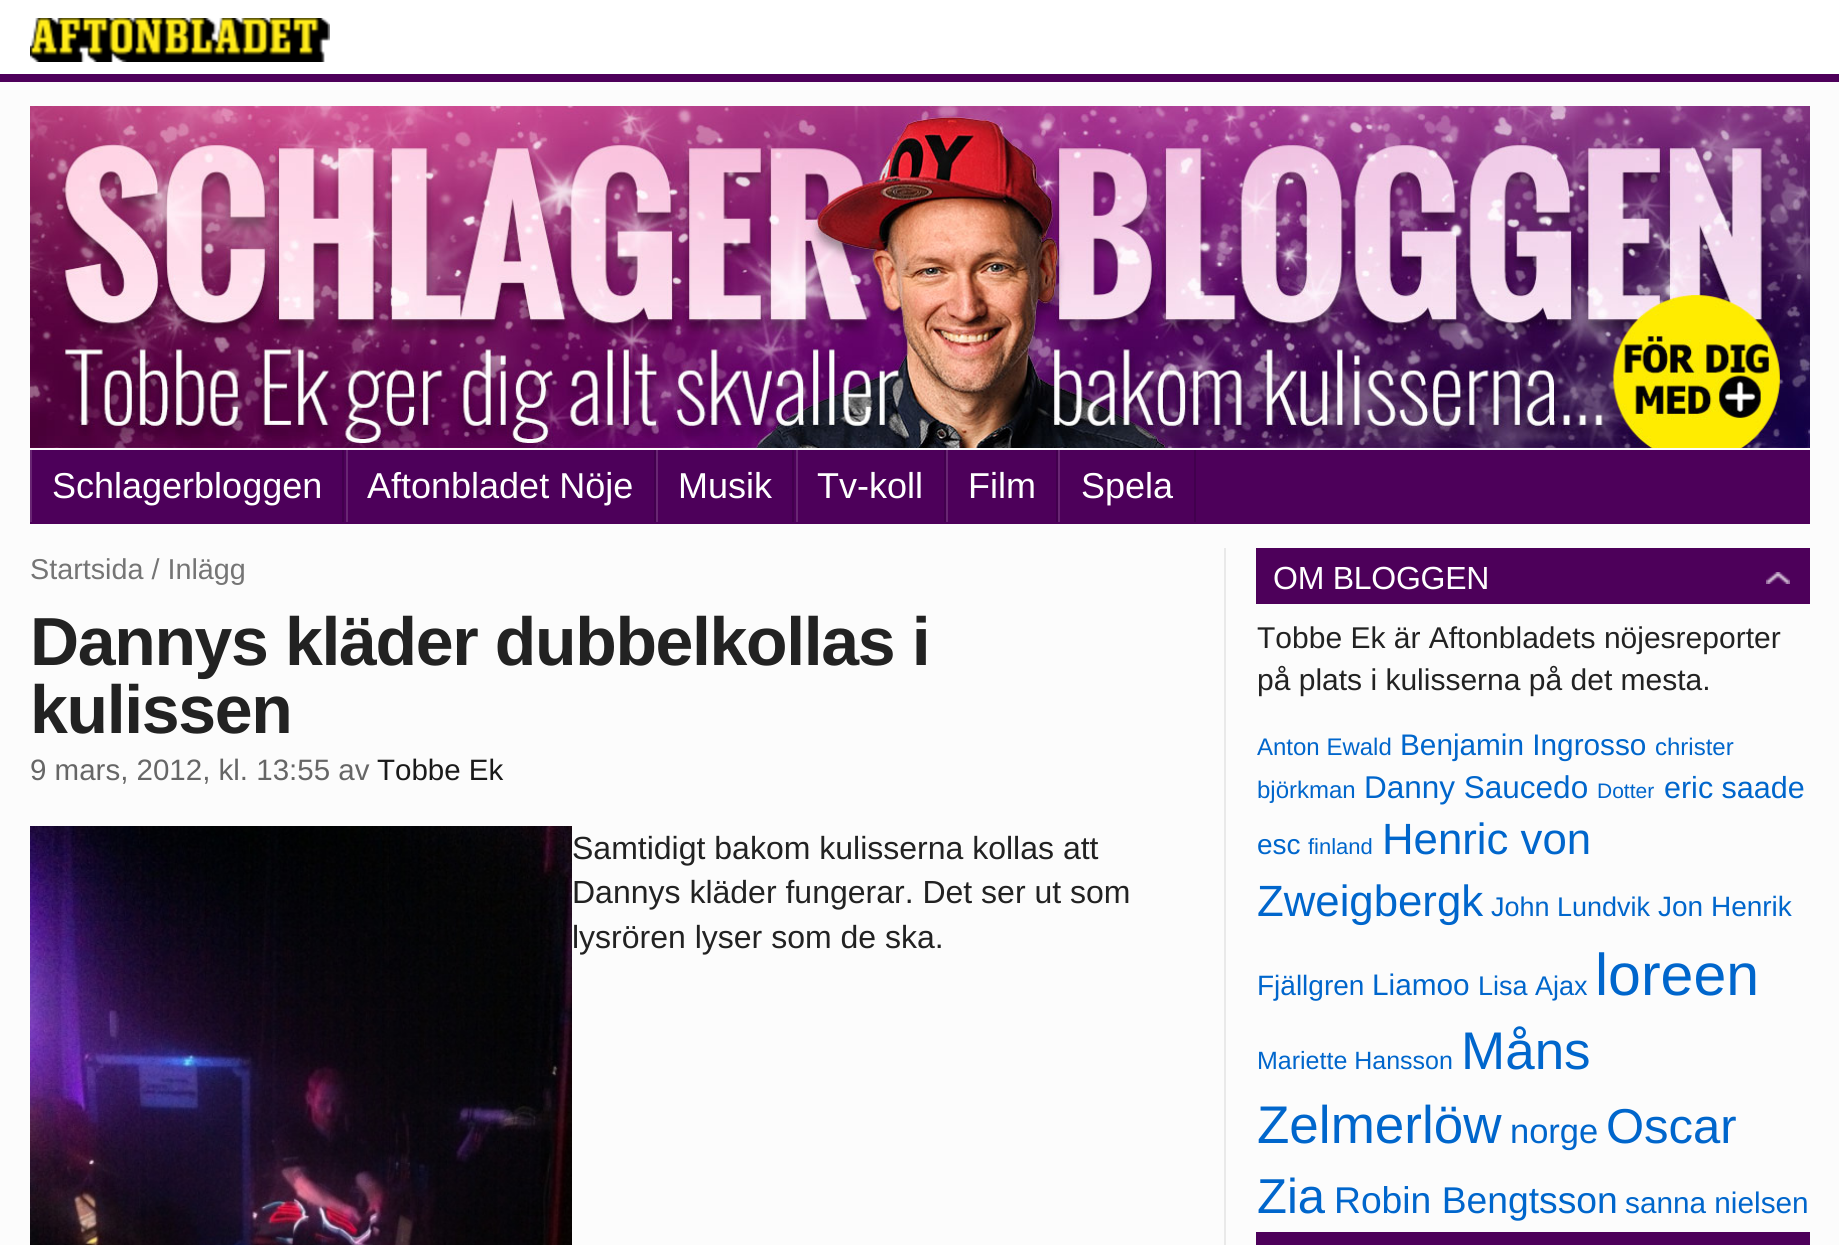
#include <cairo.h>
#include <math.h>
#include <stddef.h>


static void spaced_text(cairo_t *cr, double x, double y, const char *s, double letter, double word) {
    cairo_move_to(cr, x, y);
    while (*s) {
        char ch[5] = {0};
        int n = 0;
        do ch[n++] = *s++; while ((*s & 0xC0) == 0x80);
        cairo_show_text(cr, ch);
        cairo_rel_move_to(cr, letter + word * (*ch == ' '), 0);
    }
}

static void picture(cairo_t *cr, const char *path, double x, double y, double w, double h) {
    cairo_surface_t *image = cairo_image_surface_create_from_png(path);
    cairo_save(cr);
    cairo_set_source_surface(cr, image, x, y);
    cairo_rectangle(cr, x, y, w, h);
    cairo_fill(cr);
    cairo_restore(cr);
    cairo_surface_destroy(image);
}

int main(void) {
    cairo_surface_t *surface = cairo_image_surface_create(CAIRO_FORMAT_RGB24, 1839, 1245);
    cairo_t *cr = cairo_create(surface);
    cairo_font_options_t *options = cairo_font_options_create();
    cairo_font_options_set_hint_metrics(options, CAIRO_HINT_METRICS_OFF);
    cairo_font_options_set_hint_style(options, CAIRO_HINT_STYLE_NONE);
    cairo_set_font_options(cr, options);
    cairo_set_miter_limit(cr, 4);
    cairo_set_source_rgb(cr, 0.988, 0.988, 0.988);
    cairo_paint(cr);
    cairo_set_source_rgb(cr, 1, 1, 1);
    cairo_rectangle(cr, 0, 0, 1839, 74);
    cairo_fill(cr);
    cairo_set_source_rgb(cr, 0.302, 0, 0.353);
    cairo_rectangle(cr, 0, 74, 1839, 8);
    cairo_fill(cr);
    picture(cr, "img1.png", 30, 18, 300, 44);
    picture(cr, "img2.png", 30, 106, 1780, 342);
    cairo_rectangle(cr, 30, 450, 1780, 74);
    cairo_fill(cr);
    cairo_set_source_rgb(cr, 0.408, 0.149, 0.451);
    cairo_rectangle(cr, 30, 450, 2, 72);
    cairo_fill(cr);
    cairo_set_source_rgb(cr, 0.255, 0, 0.302);
    cairo_rectangle(cr, 342, 450, 2, 72);
    cairo_fill(cr);
    cairo_select_font_face(cr, "Liberation Sans", CAIRO_FONT_SLANT_NORMAL, CAIRO_FONT_WEIGHT_NORMAL);
    cairo_set_font_size(cr, 36);
    cairo_set_source_rgb(cr, 1, 1, 1);
    cairo_move_to(cr, 52, 498);
    cairo_show_text(cr, "Schlagerbloggen");
    cairo_set_source_rgb(cr, 0.408, 0.149, 0.451);
    cairo_rectangle(cr, 346, 450, 2, 72);
    cairo_fill(cr);
    cairo_set_source_rgb(cr, 0.255, 0, 0.302);
    cairo_rectangle(cr, 654, 450, 2, 72);
    cairo_fill(cr);
    cairo_set_source_rgb(cr, 1, 1, 1);
    cairo_move_to(cr, 367, 498);
    cairo_show_text(cr, "Aftonbladet Nöje");
    cairo_set_source_rgb(cr, 0.408, 0.149, 0.451);
    cairo_rectangle(cr, 656, 450, 2, 72);
    cairo_fill(cr);
    cairo_set_source_rgb(cr, 0.255, 0, 0.302);
    cairo_rectangle(cr, 792, 450, 2, 72);
    cairo_fill(cr);
    cairo_set_source_rgb(cr, 1, 1, 1);
    cairo_move_to(cr, 678, 498);
    cairo_show_text(cr, "Musik");
    cairo_set_source_rgb(cr, 0.408, 0.149, 0.451);
    cairo_rectangle(cr, 796, 450, 2, 72);
    cairo_fill(cr);
    cairo_set_source_rgb(cr, 0.255, 0, 0.302);
    cairo_rectangle(cr, 944, 450, 2, 72);
    cairo_fill(cr);
    cairo_set_source_rgb(cr, 1, 1, 1);
    cairo_move_to(cr, 817, 498);
    cairo_show_text(cr, "Tv-koll");
    cairo_set_source_rgb(cr, 0.408, 0.149, 0.451);
    cairo_rectangle(cr, 946, 450, 2, 72);
    cairo_fill(cr);
    cairo_set_source_rgb(cr, 0.255, 0, 0.302);
    cairo_rectangle(cr, 1056, 450, 2, 72);
    cairo_fill(cr);
    cairo_set_source_rgb(cr, 1, 1, 1);
    cairo_move_to(cr, 968, 498);
    cairo_show_text(cr, "Film");
    cairo_set_source_rgb(cr, 0.408, 0.149, 0.451);
    cairo_rectangle(cr, 1058, 450, 2, 72);
    cairo_fill(cr);
    cairo_set_source_rgb(cr, 0.255, 0, 0.302);
    cairo_rectangle(cr, 1194, 450, 2, 72);
    cairo_fill(cr);
    cairo_set_source_rgb(cr, 1, 1, 1);
    cairo_move_to(cr, 1081, 498);
    cairo_show_text(cr, "Spela");
    cairo_set_source_rgb(cr, 0.914, 0.914, 0.914);
    cairo_rectangle(cr, 1224, 548, 2, 697);
    cairo_fill(cr);
    cairo_set_font_size(cr, 28.75);
    cairo_set_source_rgb(cr, 0.459, 0.459, 0.459);
    cairo_move_to(cr, 30, 579);
    cairo_show_text(cr, "Startsida / Inlägg");
    cairo_select_font_face(cr, "Liberation Sans", CAIRO_FONT_SLANT_NORMAL, CAIRO_FONT_WEIGHT_BOLD);
    cairo_set_font_size(cr, 68);
    cairo_set_source_rgb(cr, 0.133, 0.133, 0.133);
    spaced_text(cr, 30, 665, "Dannys kläder dubbelkollas i", -1.35, 0);
    spaced_text(cr, 30, 733, "kulissen", -1.35, 0);
    cairo_select_font_face(cr, "Liberation Sans", CAIRO_FONT_SLANT_NORMAL, CAIRO_FONT_WEIGHT_NORMAL);
    cairo_set_font_size(cr, 29.5);
    cairo_set_source_rgb(cr, 0.4, 0.4, 0.4);
    cairo_move_to(cr, 30, 780);
    cairo_show_text(cr, "9 mars, 2012, kl. 13:55 av");
    cairo_set_source_rgb(cr, 0.102, 0.102, 0.102);
    cairo_move_to(cr, 377, 780);
    cairo_show_text(cr, "Tobbe Ek");
    picture(cr, "img3.png", 30, 826, 542, 419);
    cairo_set_font_size(cr, 32);
    cairo_set_source_rgb(cr, 0.133, 0.133, 0.133);
    cairo_move_to(cr, 572, 859);
    cairo_show_text(cr, "Samtidigt bakom kulisserna kollas att");
    cairo_move_to(cr, 572, 903);
    cairo_show_text(cr, "Dannys kläder fungerar. Det ser ut som");
    cairo_move_to(cr, 572, 948);
    cairo_show_text(cr, "lysrören lyser som de ska.");
    cairo_set_source_rgb(cr, 0.302, 0, 0.353);
    cairo_rectangle(cr, 1256, 548, 554, 56);
    cairo_fill(cr);
    cairo_set_source_rgb(cr, 1, 1, 1);
    spaced_text(cr, 1273, 589, "OM BLOGGEN", -0.25, 0);
    picture(cr, "img4.png", 1766, 572, 24, 12);
    cairo_set_font_size(cr, 30);
    cairo_set_source_rgb(cr, 0.133, 0.133, 0.133);
    cairo_move_to(cr, 1257, 648);
    cairo_show_text(cr, "Tobbe Ek är Aftonbladets nöjesreporter");
    cairo_move_to(cr, 1257, 690);
    cairo_show_text(cr, "på plats i kulisserna på det mesta.");
    cairo_set_font_size(cr, 24);
    cairo_set_source_rgb(cr, 0, 0.4, 0.8);
    cairo_move_to(cr, 1257, 755);
    cairo_show_text(cr, "Anton Ewald");
    cairo_set_font_size(cr, 29.75);
    cairo_move_to(cr, 1400, 755);
    cairo_show_text(cr, "Benjamin Ingrosso");
    cairo_set_font_size(cr, 24);
    cairo_move_to(cr, 1655, 755);
    cairo_show_text(cr, "christer");
    cairo_move_to(cr, 1257, 798);
    cairo_show_text(cr, "björkman");
    cairo_set_font_size(cr, 31.5);
    cairo_move_to(cr, 1364, 798);
    cairo_show_text(cr, "Danny Saucedo");
    cairo_set_font_size(cr, 21);
    cairo_move_to(cr, 1597, 798);
    cairo_show_text(cr, "Dotter");
    cairo_set_font_size(cr, 30.5);
    cairo_move_to(cr, 1664, 798);
    cairo_show_text(cr, "eric saade");
    cairo_set_font_size(cr, 28);
    cairo_move_to(cr, 1257, 854);
    cairo_show_text(cr, "esc");
    cairo_set_font_size(cr, 22);
    cairo_move_to(cr, 1308, 854);
    cairo_show_text(cr, "finland");
    cairo_set_font_size(cr, 43.75);
    cairo_move_to(cr, 1382, 854);
    cairo_show_text(cr, "Henric von");
    cairo_move_to(cr, 1257, 916);
    cairo_show_text(cr, "Zweigbergk");
    cairo_set_font_size(cr, 27);
    cairo_move_to(cr, 1491, 916);
    cairo_show_text(cr, "John Lundvik");
    cairo_set_font_size(cr, 28);
    cairo_move_to(cr, 1658, 916);
    cairo_show_text(cr, "Jon Henrik");
    cairo_move_to(cr, 1257, 995);
    cairo_show_text(cr, "Fjällgren");
    cairo_set_font_size(cr, 29.75);
    cairo_move_to(cr, 1372, 995);
    cairo_show_text(cr, "Liamoo");
    cairo_set_font_size(cr, 27);
    cairo_move_to(cr, 1478, 995);
    cairo_show_text(cr, "Lisa Ajax");
    cairo_set_font_size(cr, 59);
    cairo_move_to(cr, 1595, 995);
    cairo_show_text(cr, "loreen");
    cairo_set_font_size(cr, 25);
    cairo_move_to(cr, 1257, 1069);
    cairo_show_text(cr, "Mariette Hansson");
    cairo_set_font_size(cr, 53);
    cairo_move_to(cr, 1461, 1069);
    cairo_show_text(cr, "Måns");
    cairo_move_to(cr, 1257, 1143);
    cairo_show_text(cr, "Zelmerlöw");
    cairo_set_font_size(cr, 34.5);
    cairo_move_to(cr, 1510, 1143);
    cairo_show_text(cr, "norge");
    cairo_set_font_size(cr, 49);
    cairo_move_to(cr, 1606, 1143);
    cairo_show_text(cr, "Oscar");
    cairo_move_to(cr, 1257, 1213);
    cairo_show_text(cr, "Zia");
    cairo_set_font_size(cr, 37.25);
    cairo_move_to(cr, 1334, 1213);
    cairo_show_text(cr, "Robin Bengtsson");
    cairo_set_font_size(cr, 29.75);
    cairo_move_to(cr, 1625, 1213);
    cairo_show_text(cr, "sanna nielsen");
    cairo_set_source_rgb(cr, 0.302, 0, 0.353);
    cairo_rectangle(cr, 1256, 1232, 554, 13);
    cairo_fill(cr);
    cairo_surface_write_to_png(surface, "page.png");
    cairo_font_options_destroy(options);
    cairo_destroy(cr);
    cairo_surface_destroy(surface);
    return 0;
}
